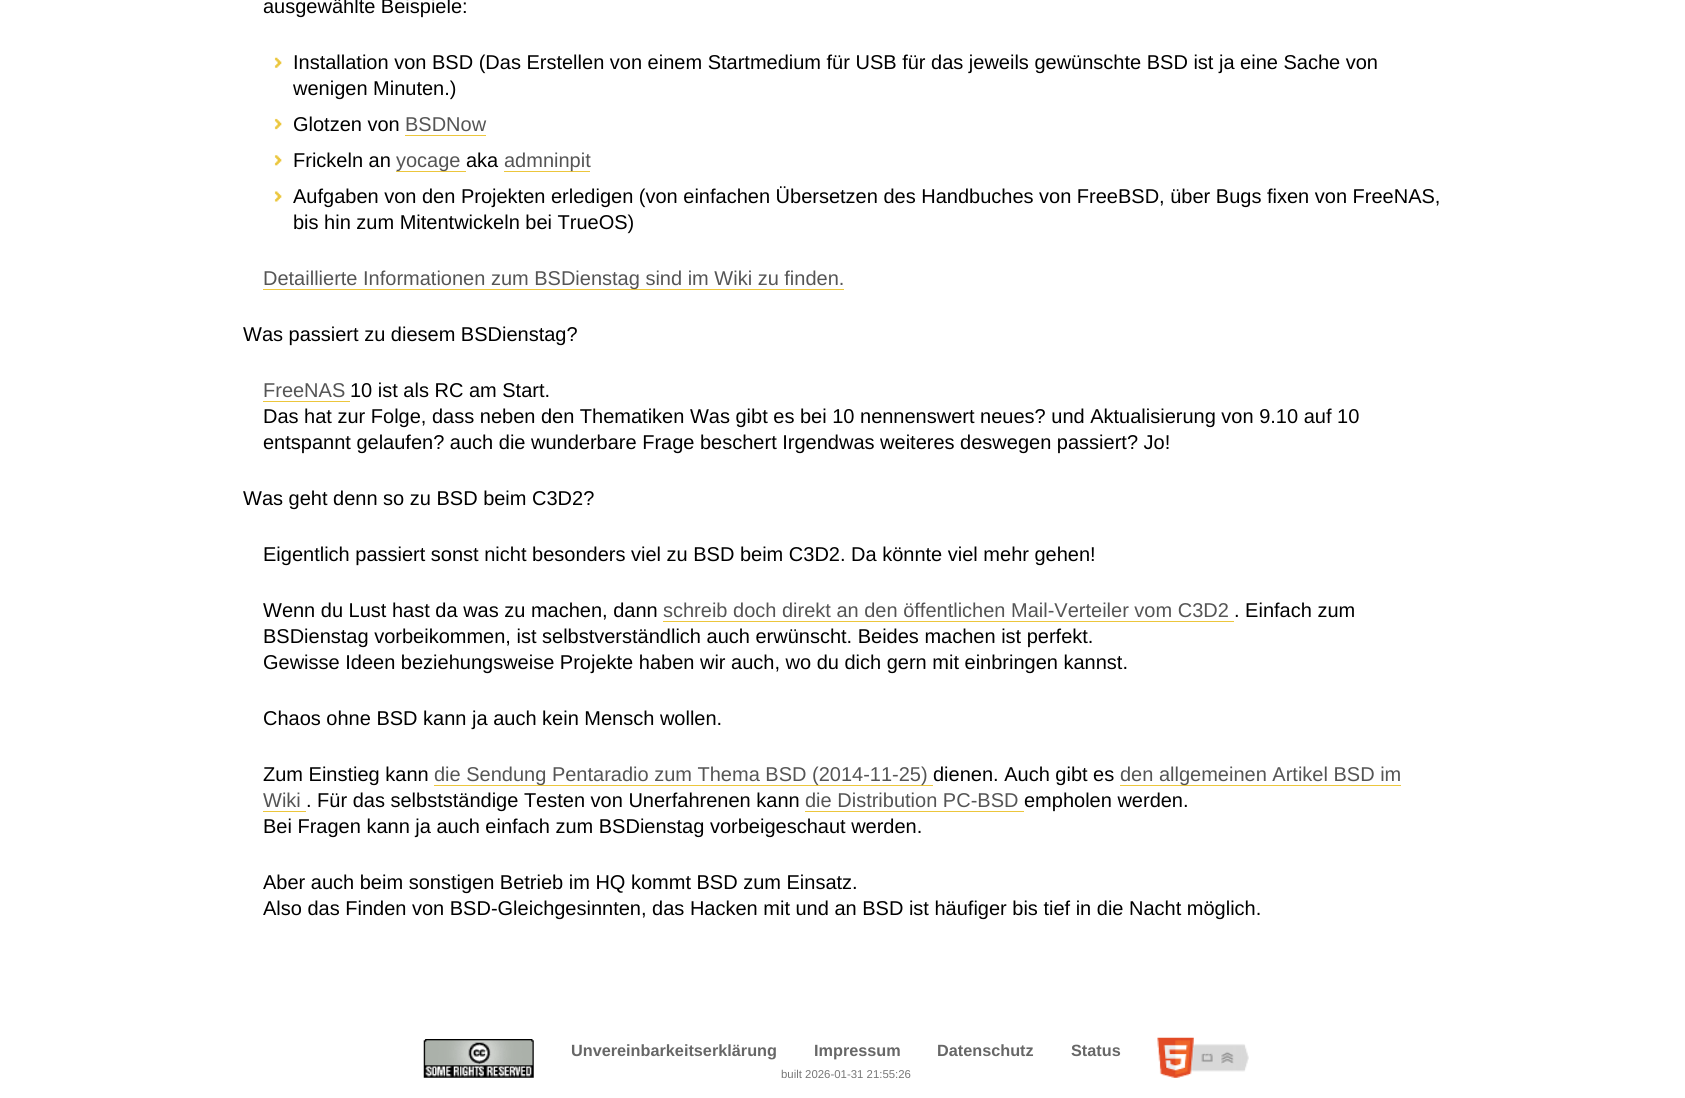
#include <cairo.h>
#include <math.h>
#include <stddef.h>


static void picture(cairo_t *cr, const char *path, double x, double y, double w, double h) {
    cairo_surface_t *image = cairo_image_surface_create_from_png(path);
    cairo_save(cr);
    cairo_set_source_surface(cr, image, x, y);
    cairo_rectangle(cr, x, y, w, h);
    cairo_fill(cr);
    cairo_restore(cr);
    cairo_surface_destroy(image);
}

int main(void) {
    cairo_surface_t *surface = cairo_image_surface_create(CAIRO_FORMAT_RGB24, 1685, 1098);
    cairo_t *cr = cairo_create(surface);
    cairo_font_options_t *options = cairo_font_options_create();
    cairo_font_options_set_hint_metrics(options, CAIRO_HINT_METRICS_OFF);
    cairo_font_options_set_hint_style(options, CAIRO_HINT_STYLE_NONE);
    cairo_set_font_options(cr, options);
    cairo_set_miter_limit(cr, 4);
    cairo_set_source_rgb(cr, 1, 1, 1);
    cairo_paint(cr);
    cairo_select_font_face(cr, "Liberation Sans", CAIRO_FONT_SLANT_NORMAL, CAIRO_FONT_WEIGHT_NORMAL);
    cairo_set_font_size(cr, 20);
    cairo_set_source_rgb(cr, 0, 0, 0);
    cairo_move_to(cr, 263, 13);
    cairo_show_text(cr, "ausgewählte Beispiele:");
    picture(cr, "img1.png", 274, 57, 8, 11);
    cairo_move_to(cr, 293, 69);
    cairo_show_text(cr, "Installation von BSD (Das Erstellen von einem Startmedium für USB für das jeweils gewünschte BSD ist ja eine Sache von");
    cairo_move_to(cr, 293, 95);
    cairo_show_text(cr, "wenigen Minuten.)");
    picture(cr, "img2.png", 274, 118, 8, 12);
    cairo_move_to(cr, 293, 131);
    cairo_show_text(cr, "Glotzen von");
    cairo_set_source_rgb(cr, 0.333, 0.333, 0.333);
    cairo_move_to(cr, 405, 131);
    cairo_show_text(cr, "BSDNow");
    cairo_set_source_rgb(cr, 0.922, 0.776, 0.235);
    cairo_rectangle(cr, 405, 135, 81, 1);
    cairo_fill(cr);
    picture(cr, "img3.png", 274, 155, 8, 11);
    cairo_set_source_rgb(cr, 0, 0, 0);
    cairo_move_to(cr, 293, 167);
    cairo_show_text(cr, "Frickeln an");
    cairo_set_source_rgb(cr, 0.922, 0.776, 0.235);
    cairo_rectangle(cr, 396, 171, 70, 1);
    cairo_fill(cr);
    cairo_set_source_rgb(cr, 0.333, 0.333, 0.333);
    cairo_move_to(cr, 396, 167);
    cairo_show_text(cr, "yocage");
    cairo_set_source_rgb(cr, 0, 0, 0);
    cairo_move_to(cr, 466, 167);
    cairo_show_text(cr, "aka");
    cairo_set_source_rgb(cr, 0.922, 0.776, 0.235);
    cairo_rectangle(cr, 504, 171, 86, 1);
    cairo_fill(cr);
    cairo_set_source_rgb(cr, 0.333, 0.333, 0.333);
    cairo_move_to(cr, 504, 167);
    cairo_show_text(cr, "admninpit");
    picture(cr, "img4.png", 274, 191, 8, 11);
    cairo_set_source_rgb(cr, 0, 0, 0);
    cairo_move_to(cr, 293, 203);
    cairo_show_text(cr, "Aufgaben von den Projekten erledigen (von einfachen Übersetzen des Handbuches von FreeBSD, über Bugs fixen von FreeNAS,");
    cairo_move_to(cr, 293, 229);
    cairo_show_text(cr, "bis hin zum Mitentwickeln bei TrueOS)");
    cairo_set_source_rgb(cr, 0.922, 0.776, 0.235);
    cairo_rectangle(cr, 263, 289, 581, 1);
    cairo_fill(cr);
    cairo_set_source_rgb(cr, 0.333, 0.333, 0.333);
    cairo_move_to(cr, 263, 285);
    cairo_show_text(cr, "Detaillierte Informationen zum BSDienstag sind im Wiki zu finden.");
    cairo_set_source_rgb(cr, 0, 0, 0);
    cairo_move_to(cr, 243, 341);
    cairo_show_text(cr, "Was passiert zu diesem BSDienstag?");
    cairo_set_source_rgb(cr, 0.333, 0.333, 0.333);
    cairo_move_to(cr, 263, 397);
    cairo_show_text(cr, "FreeNAS");
    cairo_set_source_rgb(cr, 0.922, 0.776, 0.235);
    cairo_rectangle(cr, 263, 401, 87, 1);
    cairo_fill(cr);
    cairo_set_source_rgb(cr, 0, 0, 0);
    cairo_move_to(cr, 350, 397);
    cairo_show_text(cr, "10 ist als RC am Start.");
    cairo_move_to(cr, 263, 423);
    cairo_show_text(cr, "Das hat zur Folge, dass neben den Thematiken Was gibt es bei 10 nennenswert neues? und Aktualisierung von 9.10 auf 10");
    cairo_move_to(cr, 263, 449);
    cairo_show_text(cr, "entspannt gelaufen? auch die wunderbare Frage beschert Irgendwas weiteres deswegen passiert? Jo!");
    cairo_move_to(cr, 243, 505);
    cairo_show_text(cr, "Was geht denn so zu BSD beim C3D2?");
    cairo_move_to(cr, 263, 561);
    cairo_show_text(cr, "Eigentlich passiert sonst nicht besonders viel zu BSD beim C3D2. Da könnte viel mehr gehen!");
    cairo_move_to(cr, 263, 617);
    cairo_show_text(cr, "Wenn du Lust hast da was zu machen, dann");
    cairo_set_source_rgb(cr, 0.333, 0.333, 0.333);
    cairo_move_to(cr, 663, 617);
    cairo_show_text(cr, "schreib doch direkt an den öffentlichen Mail-Verteiler vom C3D2");
    cairo_set_source_rgb(cr, 0.922, 0.776, 0.235);
    cairo_rectangle(cr, 663, 621, 571, 1);
    cairo_fill(cr);
    cairo_set_source_rgb(cr, 0, 0, 0);
    cairo_move_to(cr, 1234, 617);
    cairo_show_text(cr, ". Einfach zum");
    cairo_move_to(cr, 263, 643);
    cairo_show_text(cr, "BSDienstag vorbeikommen, ist selbstverständlich auch erwünscht. Beides machen ist perfekt.");
    cairo_move_to(cr, 263, 669);
    cairo_show_text(cr, "Gewisse Ideen beziehungsweise Projekte haben wir auch, wo du dich gern mit einbringen kannst.");
    cairo_move_to(cr, 263, 725);
    cairo_show_text(cr, "Chaos ohne BSD kann ja auch kein Mensch wollen.");
    cairo_move_to(cr, 263, 781);
    cairo_show_text(cr, "Zum Einstieg kann");
    cairo_set_source_rgb(cr, 0.922, 0.776, 0.235);
    cairo_rectangle(cr, 434, 785, 499, 1);
    cairo_fill(cr);
    cairo_set_source_rgb(cr, 0.333, 0.333, 0.333);
    cairo_move_to(cr, 434, 781);
    cairo_show_text(cr, "die Sendung Pentaradio zum Thema BSD (2014-11-25)");
    cairo_set_source_rgb(cr, 0, 0, 0);
    cairo_move_to(cr, 933, 781);
    cairo_show_text(cr, "dienen. Auch gibt es");
    cairo_set_source_rgb(cr, 0.922, 0.776, 0.235);
    cairo_rectangle(cr, 1120, 785, 281, 1);
    cairo_fill(cr);
    cairo_set_source_rgb(cr, 0.333, 0.333, 0.333);
    cairo_move_to(cr, 1120, 781);
    cairo_show_text(cr, "den allgemeinen Artikel BSD im");
    cairo_move_to(cr, 263, 807);
    cairo_show_text(cr, "Wiki");
    cairo_set_source_rgb(cr, 0.922, 0.776, 0.235);
    cairo_rectangle(cr, 263, 811, 43, 1);
    cairo_fill(cr);
    cairo_set_source_rgb(cr, 0, 0, 0);
    cairo_move_to(cr, 306, 807);
    cairo_show_text(cr, ". Für das selbstständige Testen von Unerfahrenen kann");
    cairo_set_source_rgb(cr, 0.333, 0.333, 0.333);
    cairo_move_to(cr, 805, 807);
    cairo_show_text(cr, "die Distribution PC-BSD");
    cairo_set_source_rgb(cr, 0.922, 0.776, 0.235);
    cairo_rectangle(cr, 805, 811, 219, 1);
    cairo_fill(cr);
    cairo_set_source_rgb(cr, 0, 0, 0);
    cairo_move_to(cr, 1024, 807);
    cairo_show_text(cr, "empholen werden.");
    cairo_move_to(cr, 263, 833);
    cairo_show_text(cr, "Bei Fragen kann ja auch einfach zum BSDienstag vorbeigeschaut werden.");
    cairo_move_to(cr, 263, 889);
    cairo_show_text(cr, "Aber auch beim sonstigen Betrieb im HQ kommt BSD zum Einsatz.");
    cairo_move_to(cr, 263, 915);
    cairo_show_text(cr, "Also das Finden von BSD-Gleichgesinnten, das Hacken mit und an BSD ist häufiger bis tief in die Nacht möglich.");
    picture(cr, "img5.png", 423, 1039, 111, 39);
    cairo_select_font_face(cr, "Liberation Sans", CAIRO_FONT_SLANT_NORMAL, CAIRO_FONT_WEIGHT_BOLD);
    cairo_set_font_size(cr, 16.25);
    cairo_set_source_rgb(cr, 0.404, 0.404, 0.404);
    cairo_move_to(cr, 571, 1056);
    cairo_show_text(cr, "Unvereinbarkeitserklärung");
    cairo_move_to(cr, 814, 1056);
    cairo_show_text(cr, "Impressum");
    cairo_move_to(cr, 937, 1056);
    cairo_show_text(cr, "Datenschutz");
    cairo_move_to(cr, 1071, 1056);
    cairo_show_text(cr, "Status");
    cairo_select_font_face(cr, "Liberation Sans", CAIRO_FONT_SLANT_NORMAL, CAIRO_FONT_WEIGHT_NORMAL);
    cairo_set_font_size(cr, 11.4);
    cairo_set_source_rgb(cr, 0.467, 0.467, 0.467);
    cairo_move_to(cr, 781, 1078);
    cairo_show_text(cr, "built 2026-01-31 21:55:26");
    picture(cr, "img6.png", 1157, 1037, 92, 41);
    cairo_surface_write_to_png(surface, "page.png");
    cairo_font_options_destroy(options);
    cairo_destroy(cr);
    cairo_surface_destroy(surface);
    return 0;
}
